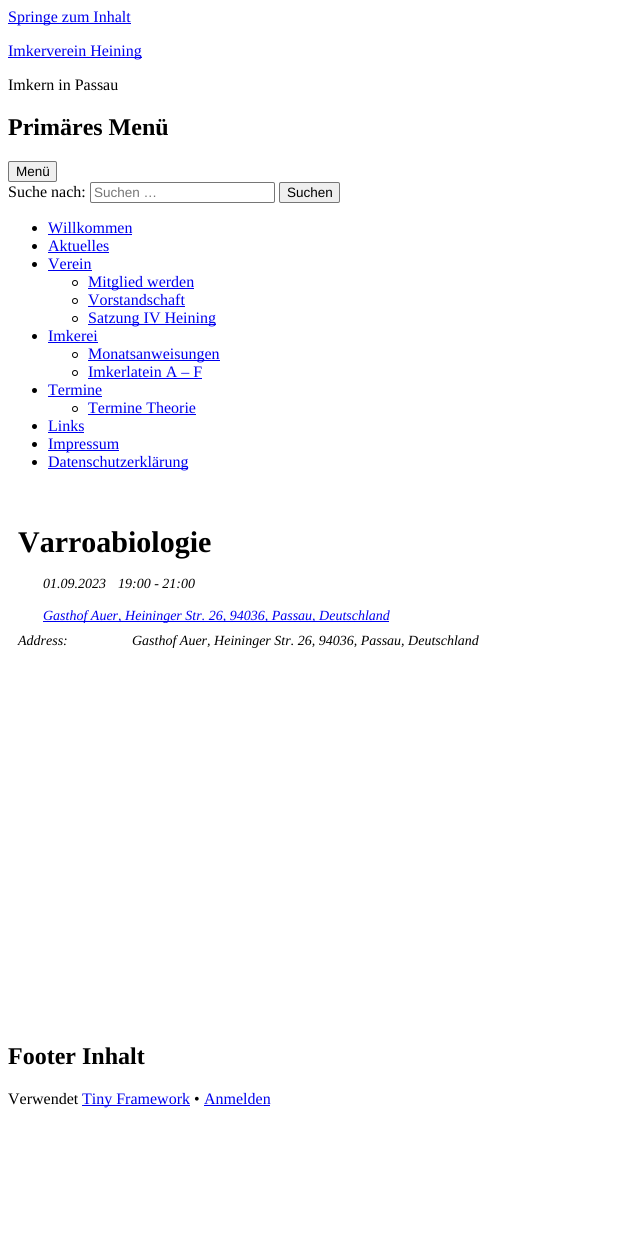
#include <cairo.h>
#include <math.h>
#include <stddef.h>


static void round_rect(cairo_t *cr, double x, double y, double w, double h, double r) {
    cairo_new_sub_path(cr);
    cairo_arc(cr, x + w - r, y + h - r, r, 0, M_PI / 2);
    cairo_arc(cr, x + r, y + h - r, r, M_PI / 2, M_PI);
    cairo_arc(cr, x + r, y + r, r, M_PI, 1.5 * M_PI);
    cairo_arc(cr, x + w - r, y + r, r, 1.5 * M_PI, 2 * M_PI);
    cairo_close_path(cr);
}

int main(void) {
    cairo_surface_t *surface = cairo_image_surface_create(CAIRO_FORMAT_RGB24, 628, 1233);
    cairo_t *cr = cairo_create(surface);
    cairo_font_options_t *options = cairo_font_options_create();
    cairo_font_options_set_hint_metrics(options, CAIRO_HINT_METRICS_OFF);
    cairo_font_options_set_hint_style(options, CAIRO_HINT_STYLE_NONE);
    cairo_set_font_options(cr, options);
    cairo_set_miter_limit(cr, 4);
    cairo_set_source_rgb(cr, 1, 1, 1);
    cairo_paint(cr);
    cairo_set_source_rgb(cr, 0, 0, 0.933);
    cairo_rectangle(cr, 8, 23, 123, 1);
    cairo_fill(cr);
    cairo_select_font_face(cr, "Liberation Serif", CAIRO_FONT_SLANT_NORMAL, CAIRO_FONT_WEIGHT_NORMAL);
    cairo_set_font_size(cr, 16);
    cairo_move_to(cr, 8, 22);
    cairo_show_text(cr, "Springe zum Inhalt");
    cairo_rectangle(cr, 8, 57, 134, 1);
    cairo_fill(cr);
    cairo_move_to(cr, 8, 56);
    cairo_show_text(cr, "Imkerverein Heining");
    cairo_set_source_rgb(cr, 0, 0, 0);
    cairo_move_to(cr, 8, 90);
    cairo_show_text(cr, "Imkern in Passau");
    cairo_select_font_face(cr, "Liberation Serif", CAIRO_FONT_SLANT_NORMAL, CAIRO_FONT_WEIGHT_BOLD);
    cairo_set_font_size(cr, 24);
    cairo_move_to(cr, 8, 135);
    cairo_show_text(cr, "Primäres Menü");
    cairo_set_source_rgb(cr, 0.937, 0.937, 0.937);
    round_rect(cr, 8.5, 161.5, 48, 20, 1.5);
    cairo_fill_preserve(cr);
    cairo_set_source_rgb(cr, 0.463, 0.463, 0.463);
    cairo_set_line_width(cr, 1);
    cairo_stroke(cr);
    cairo_select_font_face(cr, "Liberation Sans", CAIRO_FONT_SLANT_NORMAL, CAIRO_FONT_WEIGHT_NORMAL);
    cairo_set_font_size(cr, 13.5);
    cairo_set_source_rgb(cr, 0, 0, 0);
    cairo_move_to(cr, 16, 176);
    cairo_show_text(cr, "Menü");
    cairo_select_font_face(cr, "Liberation Serif", CAIRO_FONT_SLANT_NORMAL, CAIRO_FONT_WEIGHT_NORMAL);
    cairo_set_font_size(cr, 16);
    cairo_move_to(cr, 8, 197);
    cairo_show_text(cr, "Suche nach:");
    round_rect(cr, 90.5, 182.5, 184, 20, 1.5);
    cairo_set_source_rgb(cr, 0.463, 0.463, 0.463);
    cairo_stroke(cr);
    cairo_select_font_face(cr, "Liberation Sans", CAIRO_FONT_SLANT_NORMAL, CAIRO_FONT_WEIGHT_NORMAL);
    cairo_set_font_size(cr, 13.5);
    cairo_set_source_rgb(cr, 0.459, 0.459, 0.459);
    cairo_move_to(cr, 94, 197);
    cairo_show_text(cr, "Suchen …");
    cairo_set_source_rgb(cr, 0.937, 0.937, 0.937);
    round_rect(cr, 279.5, 182.5, 60, 20, 1.5);
    cairo_fill_preserve(cr);
    cairo_set_source_rgb(cr, 0.463, 0.463, 0.463);
    cairo_stroke(cr);
    cairo_set_source_rgb(cr, 0, 0, 0);
    cairo_move_to(cr, 287, 197);
    cairo_show_text(cr, "Suchen");
    cairo_new_path(cr);
    cairo_arc(cr, 34.5, 228.5, 2.5, 0, 2 * M_PI);
    cairo_fill(cr);
    cairo_select_font_face(cr, "Liberation Serif", CAIRO_FONT_SLANT_NORMAL, CAIRO_FONT_WEIGHT_NORMAL);
    cairo_set_font_size(cr, 16);
    cairo_set_source_rgb(cr, 0, 0, 0.933);
    cairo_move_to(cr, 48, 233);
    cairo_show_text(cr, "Willkommen");
    cairo_rectangle(cr, 48, 234, 84, 1);
    cairo_fill(cr);
    cairo_set_source_rgb(cr, 0, 0, 0);
    cairo_arc(cr, 34.5, 246.5, 2.5, 0, 2 * M_PI);
    cairo_fill(cr);
    cairo_set_source_rgb(cr, 0, 0, 0.933);
    cairo_move_to(cr, 48, 251);
    cairo_show_text(cr, "Aktuelles");
    cairo_rectangle(cr, 48, 252, 61, 1);
    cairo_fill(cr);
    cairo_set_source_rgb(cr, 0, 0, 0);
    cairo_arc(cr, 34.5, 264.5, 2.5, 0, 2 * M_PI);
    cairo_fill(cr);
    cairo_set_source_rgb(cr, 0, 0, 0.933);
    cairo_move_to(cr, 48, 269);
    cairo_show_text(cr, "Verein");
    cairo_rectangle(cr, 48, 270, 44, 1);
    cairo_fill(cr);
    cairo_arc(cr, 75, 283, 2.5, 0, 2 * M_PI);
    cairo_set_source_rgb(cr, 0, 0, 0);
    cairo_stroke(cr);
    cairo_set_source_rgb(cr, 0, 0, 0.933);
    cairo_rectangle(cr, 88, 288, 106, 1);
    cairo_fill(cr);
    cairo_move_to(cr, 88, 287);
    cairo_show_text(cr, "Mitglied werden");
    cairo_new_path(cr);
    cairo_arc(cr, 75, 301, 2.5, 0, 2 * M_PI);
    cairo_set_source_rgb(cr, 0, 0, 0);
    cairo_stroke(cr);
    cairo_set_source_rgb(cr, 0, 0, 0.933);
    cairo_move_to(cr, 88, 305);
    cairo_show_text(cr, "Vorstandschaft");
    cairo_rectangle(cr, 88, 306, 97, 1);
    cairo_fill(cr);
    cairo_arc(cr, 75, 319, 2.5, 0, 2 * M_PI);
    cairo_set_source_rgb(cr, 0, 0, 0);
    cairo_stroke(cr);
    cairo_set_source_rgb(cr, 0, 0, 0.933);
    cairo_rectangle(cr, 88, 324, 128, 1);
    cairo_fill(cr);
    cairo_move_to(cr, 88, 323);
    cairo_show_text(cr, "Satzung IV Heining");
    cairo_set_source_rgb(cr, 0, 0, 0);
    cairo_new_path(cr);
    cairo_arc(cr, 34.5, 336.5, 2.5, 0, 2 * M_PI);
    cairo_fill(cr);
    cairo_set_source_rgb(cr, 0, 0, 0.933);
    cairo_move_to(cr, 48, 341);
    cairo_show_text(cr, "Imkerei");
    cairo_rectangle(cr, 48, 342, 50, 1);
    cairo_fill(cr);
    cairo_arc(cr, 75, 355, 2.5, 0, 2 * M_PI);
    cairo_set_source_rgb(cr, 0, 0, 0);
    cairo_stroke(cr);
    cairo_set_source_rgb(cr, 0, 0, 0.933);
    cairo_rectangle(cr, 88, 360, 132, 1);
    cairo_fill(cr);
    cairo_move_to(cr, 88, 359);
    cairo_show_text(cr, "Monatsanweisungen");
    cairo_new_path(cr);
    cairo_arc(cr, 75, 373, 2.5, 0, 2 * M_PI);
    cairo_set_source_rgb(cr, 0, 0, 0);
    cairo_stroke(cr);
    cairo_set_source_rgb(cr, 0, 0, 0.933);
    cairo_move_to(cr, 88, 377);
    cairo_show_text(cr, "Imkerlatein A – F");
    cairo_rectangle(cr, 88, 378, 114, 1);
    cairo_fill(cr);
    cairo_set_source_rgb(cr, 0, 0, 0);
    cairo_arc(cr, 34.5, 390.5, 2.5, 0, 2 * M_PI);
    cairo_fill(cr);
    cairo_set_source_rgb(cr, 0, 0, 0.933);
    cairo_move_to(cr, 48, 395);
    cairo_show_text(cr, "Termine");
    cairo_rectangle(cr, 48, 396, 54, 1);
    cairo_fill(cr);
    cairo_arc(cr, 75, 409, 2.5, 0, 2 * M_PI);
    cairo_set_source_rgb(cr, 0, 0, 0);
    cairo_stroke(cr);
    cairo_set_source_rgb(cr, 0, 0, 0.933);
    cairo_move_to(cr, 88, 413);
    cairo_show_text(cr, "Termine Theorie");
    cairo_rectangle(cr, 88, 414, 108, 1);
    cairo_fill(cr);
    cairo_set_source_rgb(cr, 0, 0, 0);
    cairo_arc(cr, 34.5, 426.5, 2.5, 0, 2 * M_PI);
    cairo_fill(cr);
    cairo_set_source_rgb(cr, 0, 0, 0.933);
    cairo_move_to(cr, 48, 431);
    cairo_show_text(cr, "Links");
    cairo_rectangle(cr, 48, 432, 36, 1);
    cairo_fill(cr);
    cairo_set_source_rgb(cr, 0, 0, 0);
    cairo_arc(cr, 34.5, 444.5, 2.5, 0, 2 * M_PI);
    cairo_fill(cr);
    cairo_set_source_rgb(cr, 0, 0, 0.933);
    cairo_rectangle(cr, 48, 450, 71, 1);
    cairo_fill(cr);
    cairo_move_to(cr, 48, 449);
    cairo_show_text(cr, "Impressum");
    cairo_set_source_rgb(cr, 0, 0, 0);
    cairo_new_path(cr);
    cairo_arc(cr, 34.5, 462.5, 2.5, 0, 2 * M_PI);
    cairo_fill(cr);
    cairo_set_source_rgb(cr, 0, 0, 0.933);
    cairo_rectangle(cr, 48, 468, 140, 1);
    cairo_fill(cr);
    cairo_move_to(cr, 48, 467);
    cairo_show_text(cr, "Datenschutzerklärung");
    cairo_select_font_face(cr, "Liberation Serif", CAIRO_FONT_SLANT_NORMAL, CAIRO_FONT_WEIGHT_BOLD);
    cairo_set_font_size(cr, 30);
    cairo_set_source_rgb(cr, 0, 0, 0);
    cairo_move_to(cr, 18, 552);
    cairo_show_text(cr, "Varroabiologie");
    cairo_select_font_face(cr, "Liberation Serif", CAIRO_FONT_SLANT_ITALIC, CAIRO_FONT_WEIGHT_NORMAL);
    cairo_set_font_size(cr, 14);
    cairo_move_to(cr, 43, 588);
    cairo_show_text(cr, "01.09.2023");
    cairo_move_to(cr, 118, 588);
    cairo_show_text(cr, "19:00 - 21:00");
    cairo_set_source_rgb(cr, 0, 0, 0.933);
    cairo_rectangle(cr, 43, 621, 346, 1);
    cairo_fill(cr);
    cairo_move_to(cr, 43, 620);
    cairo_show_text(cr, "Gasthof Auer, Heininger Str. 26, 94036, Passau, Deutschland");
    cairo_set_source_rgb(cr, 0, 0, 0);
    cairo_move_to(cr, 18, 645);
    cairo_show_text(cr, "Address:");
    cairo_move_to(cr, 132, 645);
    cairo_show_text(cr, "Gasthof Auer, Heininger Str. 26, 94036, Passau, Deutschland");
    cairo_select_font_face(cr, "Liberation Serif", CAIRO_FONT_SLANT_NORMAL, CAIRO_FONT_WEIGHT_BOLD);
    cairo_set_font_size(cr, 24);
    cairo_move_to(cr, 8, 1064);
    cairo_show_text(cr, "Footer Inhalt");
    cairo_select_font_face(cr, "Liberation Serif", CAIRO_FONT_SLANT_NORMAL, CAIRO_FONT_WEIGHT_NORMAL);
    cairo_set_font_size(cr, 16);
    cairo_move_to(cr, 8, 1104);
    cairo_show_text(cr, "Verwendet");
    cairo_set_source_rgb(cr, 0, 0, 0.933);
    cairo_rectangle(cr, 82, 1105, 108, 1);
    cairo_fill(cr);
    cairo_move_to(cr, 82, 1104);
    cairo_show_text(cr, "Tiny Framework");
    cairo_set_source_rgb(cr, 0, 0, 0);
    cairo_move_to(cr, 194, 1104);
    cairo_show_text(cr, "•");
    cairo_set_source_rgb(cr, 0, 0, 0.933);
    cairo_move_to(cr, 204, 1104);
    cairo_show_text(cr, "Anmelden");
    cairo_rectangle(cr, 204, 1105, 66, 1);
    cairo_fill(cr);
    cairo_surface_write_to_png(surface, "page.png");
    cairo_font_options_destroy(options);
    cairo_destroy(cr);
    cairo_surface_destroy(surface);
    return 0;
}
